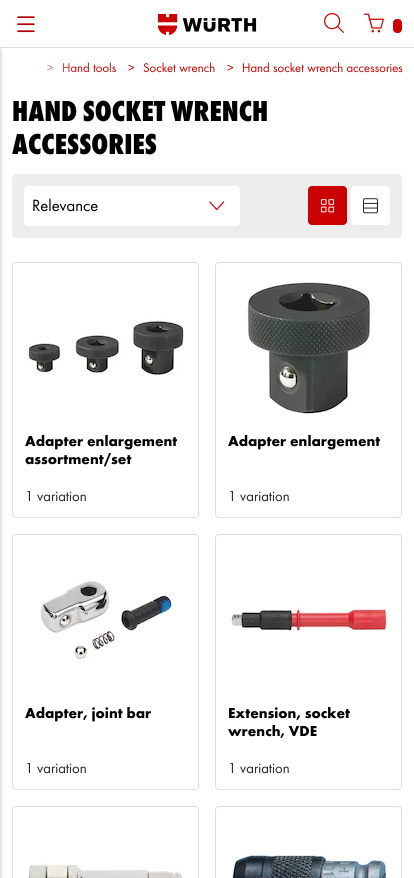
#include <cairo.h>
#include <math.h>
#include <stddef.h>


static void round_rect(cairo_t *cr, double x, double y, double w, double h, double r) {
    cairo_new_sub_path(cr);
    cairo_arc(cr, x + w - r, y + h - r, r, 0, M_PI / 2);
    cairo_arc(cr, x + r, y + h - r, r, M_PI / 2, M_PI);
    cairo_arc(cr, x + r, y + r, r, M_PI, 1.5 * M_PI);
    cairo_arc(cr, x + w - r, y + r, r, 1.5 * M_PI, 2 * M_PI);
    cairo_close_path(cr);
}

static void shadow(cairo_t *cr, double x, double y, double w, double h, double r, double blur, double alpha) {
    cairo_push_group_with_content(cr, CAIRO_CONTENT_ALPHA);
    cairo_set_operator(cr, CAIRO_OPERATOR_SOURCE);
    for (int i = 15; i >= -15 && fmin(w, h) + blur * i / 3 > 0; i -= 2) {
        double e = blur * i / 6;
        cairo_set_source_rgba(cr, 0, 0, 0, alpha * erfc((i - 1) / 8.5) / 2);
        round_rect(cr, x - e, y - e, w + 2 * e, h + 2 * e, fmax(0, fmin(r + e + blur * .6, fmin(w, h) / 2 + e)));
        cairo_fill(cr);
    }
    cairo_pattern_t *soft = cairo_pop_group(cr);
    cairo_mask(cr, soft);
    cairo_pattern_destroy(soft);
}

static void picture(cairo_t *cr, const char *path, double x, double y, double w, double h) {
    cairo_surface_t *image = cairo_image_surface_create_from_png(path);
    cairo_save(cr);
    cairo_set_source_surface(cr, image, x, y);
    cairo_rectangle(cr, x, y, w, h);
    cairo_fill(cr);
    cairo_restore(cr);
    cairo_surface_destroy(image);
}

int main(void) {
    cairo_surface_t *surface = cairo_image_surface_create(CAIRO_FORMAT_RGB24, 414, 878);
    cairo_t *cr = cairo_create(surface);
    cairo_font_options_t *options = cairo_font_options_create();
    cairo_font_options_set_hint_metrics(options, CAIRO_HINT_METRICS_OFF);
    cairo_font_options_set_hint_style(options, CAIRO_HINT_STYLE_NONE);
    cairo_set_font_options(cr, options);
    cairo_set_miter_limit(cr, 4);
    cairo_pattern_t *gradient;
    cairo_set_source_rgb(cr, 1, 1, 1);
    cairo_paint(cr);
    cairo_set_source_rgb(cr, 0.871, 0.871, 0.871);
    cairo_rectangle(cr, 0, 47, 414, 1);
    cairo_fill(cr);
    picture(cr, "img1.png", 17, 16, 18, 17);
    picture(cr, "img2.png", 157, 14, 100, 21);
    picture(cr, "img3.png", 324, 13, 20, 20);
    picture(cr, "img4.png", 364, 13, 20, 20);
    cairo_set_source_rgb(cr, 0.8, 0, 0);
    round_rect(cr, 393, 19, 9, 14, 4);
    cairo_fill(cr);
    cairo_set_source_rgb(cr, 0, 0, 0);
    shadow(cr, -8, 50, 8, 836, 0, 2.5, 0.26);
    cairo_select_font_face(cr, "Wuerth", CAIRO_FONT_SLANT_NORMAL, CAIRO_FONT_WEIGHT_NORMAL);
    cairo_set_font_size(cr, 13);
    cairo_set_source_rgb(cr, 0.8, 0, 0);
    cairo_move_to(cr, 47, 72);
    cairo_show_text(cr, ">");
    cairo_move_to(cr, 62, 72);
    cairo_show_text(cr, "Hand tools");
    cairo_move_to(cr, 128, 72);
    cairo_show_text(cr, ">");
    cairo_move_to(cr, 143, 72);
    cairo_show_text(cr, "Socket wrench");
    cairo_move_to(cr, 227, 72);
    cairo_show_text(cr, ">");
    cairo_move_to(cr, 242, 72);
    cairo_show_text(cr, "Hand socket wrench accessories");
    gradient = cairo_pattern_create_linear(16, 70, 78, 70);
    cairo_pattern_add_color_stop_rgba(gradient, 0.02, 1, 1, 1, 1);
    cairo_pattern_add_color_stop_rgba(gradient, 0.98, 1, 1, 1, 0);
    cairo_set_source(cr, gradient);
    cairo_pattern_destroy(gradient);
    cairo_rectangle(cr, 47, 63, 28, 9);
    cairo_fill(cr);
    cairo_select_font_face(cr, "Wuerth ExtraBold", CAIRO_FONT_SLANT_NORMAL, CAIRO_FONT_WEIGHT_NORMAL);
    cairo_set_font_size(cr, 30);
    cairo_set_source_rgb(cr, 0, 0, 0);
    cairo_move_to(cr, 12, 121);
    cairo_show_text(cr, "HAND SOCKET WRENCH");
    cairo_move_to(cr, 12, 154);
    cairo_show_text(cr, "ACCESSORIES");
    cairo_set_source_rgb(cr, 0.929, 0.929, 0.929);
    round_rect(cr, 12, 174, 390, 64, 4);
    cairo_fill(cr);
    cairo_set_source_rgb(cr, 1, 1, 1);
    round_rect(cr, 24, 186, 216, 40, 4);
    cairo_fill(cr);
    picture(cr, "img5.png", 209, 201, 16, 10);
    cairo_select_font_face(cr, "Wuerth", CAIRO_FONT_SLANT_NORMAL, CAIRO_FONT_WEIGHT_NORMAL);
    cairo_set_font_size(cr, 17);
    cairo_set_source_rgb(cr, 0, 0, 0);
    cairo_move_to(cr, 32, 211);
    cairo_show_text(cr, "Relevance");
    cairo_set_source_rgb(cr, 0.8, 0, 0);
    round_rect(cr, 308, 186, 39, 39, 4);
    cairo_fill(cr);
    picture(cr, "img6.png", 320, 199, 15, 14);
    cairo_set_source_rgb(cr, 1, 1, 1);
    round_rect(cr, 351, 186, 39, 39, 4);
    cairo_fill(cr);
    picture(cr, "img7.png", 363, 198, 15, 16);
    round_rect(cr, 12.5, 262.5, 186, 255, 3.5);
    cairo_set_source_rgb(cr, 0.871, 0.871, 0.871);
    cairo_set_line_width(cr, 1);
    cairo_stroke(cr);
    picture(cr, "img8.png", 26, 319, 158, 56);
    cairo_select_font_face(cr, "Wuerth", CAIRO_FONT_SLANT_NORMAL, CAIRO_FONT_WEIGHT_BOLD);
    cairo_set_font_size(cr, 15);
    cairo_set_source_rgb(cr, 0, 0, 0);
    cairo_move_to(cr, 25, 446);
    cairo_show_text(cr, "Adapter enlargement");
    cairo_move_to(cr, 25, 464);
    cairo_show_text(cr, "assortment/set");
    cairo_set_source_rgb(cr, 1, 1, 1);
    cairo_new_path(cr);
    cairo_move_to(cr, 13, 484);
    cairo_line_to(cr, 198, 484);
    cairo_line_to(cr, 198, 514);
    cairo_curve_to(cr, 198, 515.5, 196.5, 517, 195, 517);
    cairo_line_to(cr, 16, 517);
    cairo_curve_to(cr, 14.5, 517, 13, 515.5, 13, 514);
    cairo_close_path(cr);
    cairo_fill(cr);
    cairo_select_font_face(cr, "Wuerth", CAIRO_FONT_SLANT_NORMAL, CAIRO_FONT_WEIGHT_NORMAL);
    cairo_set_source_rgb(cr, 0.149, 0.149, 0.149);
    cairo_move_to(cr, 25, 501);
    cairo_show_text(cr, "1 variation");
    round_rect(cr, 215.5, 262.5, 186, 255, 3.5);
    cairo_set_source_rgb(cr, 0.871, 0.871, 0.871);
    cairo_stroke(cr);
    picture(cr, "img9.png", 247, 282, 125, 133);
    cairo_select_font_face(cr, "Wuerth", CAIRO_FONT_SLANT_NORMAL, CAIRO_FONT_WEIGHT_BOLD);
    cairo_set_source_rgb(cr, 0, 0, 0);
    cairo_move_to(cr, 228, 446);
    cairo_show_text(cr, "Adapter enlargement");
    cairo_set_source_rgb(cr, 1, 1, 1);
    cairo_new_path(cr);
    cairo_move_to(cr, 216, 484);
    cairo_line_to(cr, 401, 484);
    cairo_line_to(cr, 401, 514);
    cairo_curve_to(cr, 401, 515.5, 399.5, 517, 398, 517);
    cairo_line_to(cr, 219, 517);
    cairo_curve_to(cr, 217.5, 517, 216, 515.5, 216, 514);
    cairo_close_path(cr);
    cairo_fill(cr);
    cairo_select_font_face(cr, "Wuerth", CAIRO_FONT_SLANT_NORMAL, CAIRO_FONT_WEIGHT_NORMAL);
    cairo_set_source_rgb(cr, 0.149, 0.149, 0.149);
    cairo_move_to(cr, 228, 501);
    cairo_show_text(cr, "1 variation");
    round_rect(cr, 12.5, 534.5, 186, 255, 3.5);
    cairo_set_source_rgb(cr, 0.871, 0.871, 0.871);
    cairo_stroke(cr);
    picture(cr, "img10.png", 40, 581, 133, 82);
    cairo_select_font_face(cr, "Wuerth", CAIRO_FONT_SLANT_NORMAL, CAIRO_FONT_WEIGHT_BOLD);
    cairo_set_source_rgb(cr, 0, 0, 0);
    cairo_move_to(cr, 25, 718);
    cairo_show_text(cr, "Adapter, joint bar");
    cairo_set_source_rgb(cr, 1, 1, 1);
    cairo_new_path(cr);
    cairo_move_to(cr, 13, 756);
    cairo_line_to(cr, 198, 756);
    cairo_line_to(cr, 198, 786);
    cairo_curve_to(cr, 198, 787.5, 196.5, 789, 195, 789);
    cairo_line_to(cr, 16, 789);
    cairo_curve_to(cr, 14.5, 789, 13, 787.5, 13, 786);
    cairo_close_path(cr);
    cairo_fill(cr);
    cairo_select_font_face(cr, "Wuerth", CAIRO_FONT_SLANT_NORMAL, CAIRO_FONT_WEIGHT_NORMAL);
    cairo_set_source_rgb(cr, 0.149, 0.149, 0.149);
    cairo_move_to(cr, 25, 773);
    cairo_show_text(cr, "1 variation");
    round_rect(cr, 215.5, 534.5, 186, 255, 3.5);
    cairo_set_source_rgb(cr, 0.871, 0.871, 0.871);
    cairo_stroke(cr);
    picture(cr, "img11.png", 228, 607, 164, 24);
    cairo_select_font_face(cr, "Wuerth", CAIRO_FONT_SLANT_NORMAL, CAIRO_FONT_WEIGHT_BOLD);
    cairo_set_source_rgb(cr, 0, 0, 0);
    cairo_move_to(cr, 228, 718);
    cairo_show_text(cr, "Extension, socket");
    cairo_move_to(cr, 228, 736);
    cairo_show_text(cr, "wrench, VDE");
    cairo_set_source_rgb(cr, 1, 1, 1);
    cairo_new_path(cr);
    cairo_move_to(cr, 216, 756);
    cairo_line_to(cr, 401, 756);
    cairo_line_to(cr, 401, 786);
    cairo_curve_to(cr, 401, 787.5, 399.5, 789, 398, 789);
    cairo_line_to(cr, 219, 789);
    cairo_curve_to(cr, 217.5, 789, 216, 787.5, 216, 786);
    cairo_close_path(cr);
    cairo_fill(cr);
    cairo_select_font_face(cr, "Wuerth", CAIRO_FONT_SLANT_NORMAL, CAIRO_FONT_WEIGHT_NORMAL);
    cairo_set_source_rgb(cr, 0.149, 0.149, 0.149);
    cairo_move_to(cr, 228, 773);
    cairo_show_text(cr, "1 variation");
    round_rect(cr, 12.5, 806.5, 186, 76, 3.5);
    cairo_set_source_rgb(cr, 0.871, 0.871, 0.871);
    cairo_stroke(cr);
    picture(cr, "img12.png", 28, 863, 155, 15);
    round_rect(cr, 215.5, 806.5, 186, 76, 3.5);
    cairo_stroke(cr);
    picture(cr, "img13.png", 232, 854, 159, 24);
    cairo_surface_write_to_png(surface, "page.png");
    cairo_font_options_destroy(options);
    cairo_destroy(cr);
    cairo_surface_destroy(surface);
    return 0;
}
